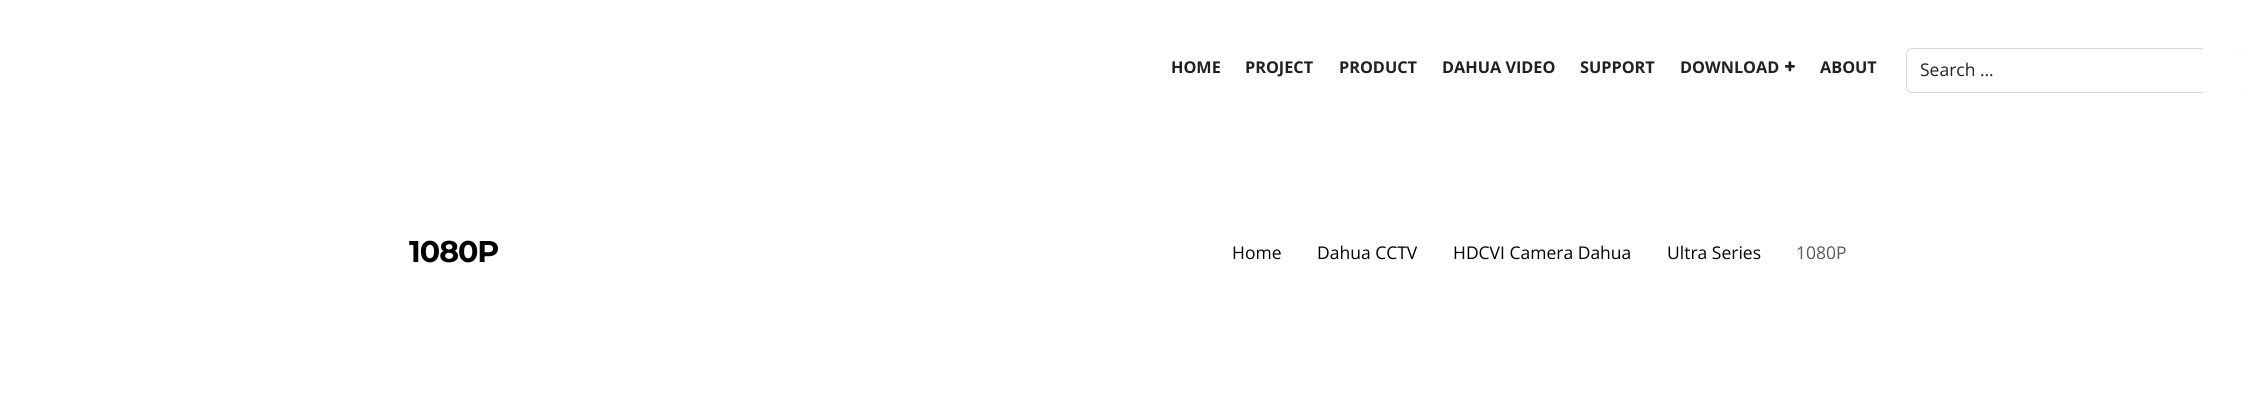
#include <cairo.h>
#include <math.h>
#include <stddef.h>


static void spaced_text(cairo_t *cr, double x, double y, const char *s, double letter, double word) {
    cairo_move_to(cr, x, y);
    while (*s) {
        char ch[5] = {0};
        int n = 0;
        do ch[n++] = *s++; while ((*s & 0xC0) == 0x80);
        cairo_show_text(cr, ch);
        cairo_rel_move_to(cr, letter + word * (*ch == ' '), 0);
    }
}

static void round_rect(cairo_t *cr, double x, double y, double w, double h, double r) {
    cairo_new_sub_path(cr);
    cairo_arc(cr, x + w - r, y + h - r, r, 0, M_PI / 2);
    cairo_arc(cr, x + r, y + h - r, r, M_PI / 2, M_PI);
    cairo_arc(cr, x + r, y + r, r, M_PI, 1.5 * M_PI);
    cairo_arc(cr, x + w - r, y + r, r, 1.5 * M_PI, 2 * M_PI);
    cairo_close_path(cr);
}

static void picture(cairo_t *cr, const char *path, double x, double y, double w, double h) {
    cairo_surface_t *image = cairo_image_surface_create_from_png(path);
    cairo_save(cr);
    cairo_set_source_surface(cr, image, x, y);
    cairo_rectangle(cr, x, y, w, h);
    cairo_fill(cr);
    cairo_restore(cr);
    cairo_surface_destroy(image);
}

int main(void) {
    cairo_surface_t *surface = cairo_image_surface_create(CAIRO_FORMAT_RGB24, 2256, 415);
    cairo_t *cr = cairo_create(surface);
    cairo_font_options_t *options = cairo_font_options_create();
    cairo_font_options_set_hint_metrics(options, CAIRO_HINT_METRICS_OFF);
    cairo_font_options_set_hint_style(options, CAIRO_HINT_STYLE_NONE);
    cairo_set_font_options(cr, options);
    cairo_set_miter_limit(cr, 4);
    cairo_set_source_rgb(cr, 1, 1, 1);
    cairo_paint(cr);
    cairo_select_font_face(cr, "Open Sans", CAIRO_FONT_SLANT_NORMAL, CAIRO_FONT_WEIGHT_BOLD);
    cairo_set_font_size(cr, 16.25);
    cairo_set_source_rgb(cr, 0.129, 0.129, 0.129);
    cairo_move_to(cr, 1171, 73);
    cairo_show_text(cr, "HOME");
    cairo_move_to(cr, 1245, 73);
    cairo_show_text(cr, "PROJECT");
    cairo_move_to(cr, 1339, 73);
    cairo_show_text(cr, "PRODUCT");
    cairo_move_to(cr, 1442, 73);
    cairo_show_text(cr, "DAHUA VIDEO");
    cairo_move_to(cr, 1580, 73);
    cairo_show_text(cr, "SUPPORT");
    cairo_move_to(cr, 1680, 73);
    cairo_show_text(cr, "DOWNLOAD");
    picture(cr, "img1.png", 1785, 61, 10, 11);
    cairo_move_to(cr, 1820, 73);
    cairo_show_text(cr, "ABOUT");
    round_rect(cr, 1906.5, 48.5, 337, 44, 5.5);
    cairo_set_source_rgb(cr, 0.835, 0.835, 0.835);
    cairo_set_line_width(cr, 1);
    cairo_stroke(cr);
    cairo_select_font_face(cr, "Open Sans", CAIRO_FONT_SLANT_NORMAL, CAIRO_FONT_WEIGHT_NORMAL);
    cairo_set_font_size(cr, 17.5);
    cairo_set_source_rgb(cr, 0.129, 0.129, 0.129);
    cairo_move_to(cr, 1920, 76);
    cairo_show_text(cr, "Search …");
    cairo_set_source_rgb(cr, 1, 1, 1);
    round_rect(cr, 2199, 48, 45, 45, 6);
    cairo_fill(cr);
    cairo_select_font_face(cr, "Montserrat", CAIRO_FONT_SLANT_NORMAL, CAIRO_FONT_WEIGHT_BOLD);
    cairo_set_font_size(cr, 30);
    cairo_set_source_rgb(cr, 0, 0, 0);
    spaced_text(cr, 409, 262, "1080P", -1, 0);
    cairo_select_font_face(cr, "Open Sans", CAIRO_FONT_SLANT_NORMAL, CAIRO_FONT_WEIGHT_NORMAL);
    cairo_set_font_size(cr, 17.5);
    cairo_move_to(cr, 1232, 259);
    cairo_show_text(cr, "Home");
    cairo_move_to(cr, 1317, 259);
    cairo_show_text(cr, "Dahua CCTV");
    cairo_move_to(cr, 1453, 259);
    cairo_show_text(cr, "HDCVI Camera Dahua");
    cairo_move_to(cr, 1667, 259);
    cairo_show_text(cr, "Ultra Series");
    cairo_set_source_rgb(cr, 0.349, 0.349, 0.349);
    cairo_move_to(cr, 1796, 259);
    cairo_show_text(cr, "1080P");
    cairo_surface_write_to_png(surface, "page.png");
    cairo_font_options_destroy(options);
    cairo_destroy(cr);
    cairo_surface_destroy(surface);
    return 0;
}
